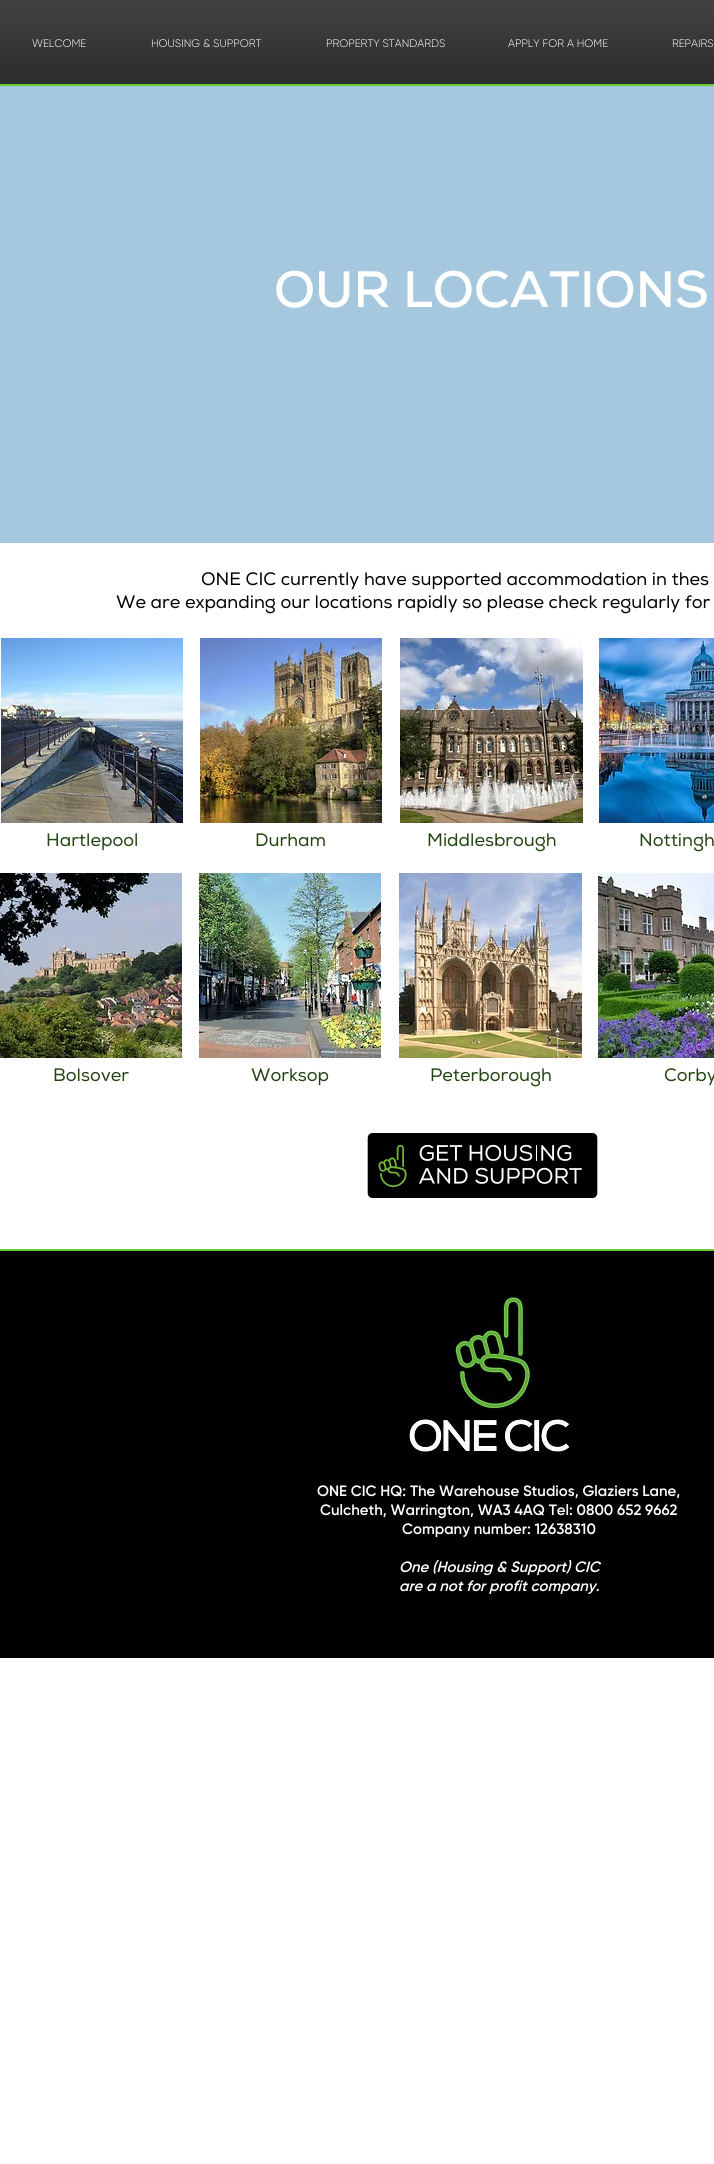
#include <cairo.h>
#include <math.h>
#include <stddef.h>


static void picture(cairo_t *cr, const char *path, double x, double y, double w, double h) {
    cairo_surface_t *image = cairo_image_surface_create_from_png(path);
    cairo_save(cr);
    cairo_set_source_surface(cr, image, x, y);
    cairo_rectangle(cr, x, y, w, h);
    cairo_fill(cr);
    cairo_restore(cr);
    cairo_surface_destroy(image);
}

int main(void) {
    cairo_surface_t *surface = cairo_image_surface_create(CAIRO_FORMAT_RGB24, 714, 2164);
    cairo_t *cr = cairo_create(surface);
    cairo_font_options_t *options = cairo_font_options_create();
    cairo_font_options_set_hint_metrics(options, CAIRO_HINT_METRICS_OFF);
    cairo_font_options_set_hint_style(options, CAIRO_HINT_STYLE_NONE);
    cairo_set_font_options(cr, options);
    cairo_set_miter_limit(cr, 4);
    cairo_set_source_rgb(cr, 1, 1, 1);
    cairo_paint(cr);
    cairo_set_source_rgb(cr, 0, 0, 0);
    cairo_rectangle(cr, 0, 0, 714, 84);
    cairo_fill(cr);
    picture(cr, "img1.png", 0, 0, 714, 84);
    cairo_set_source_rgb(cr, 0.4, 0.8, 0.2);
    cairo_rectangle(cr, 0, 84, 714, 2);
    cairo_fill(cr);
    cairo_select_font_face(cr, "Gilroy Light", CAIRO_FONT_SLANT_NORMAL, CAIRO_FONT_WEIGHT_NORMAL);
    cairo_set_font_size(cr, 11);
    cairo_set_source_rgb(cr, 1, 1, 1);
    cairo_move_to(cr, 32, 47);
    cairo_show_text(cr, "WELCOME");
    cairo_move_to(cr, 151, 47);
    cairo_show_text(cr, "HOUSING & SUPPORT");
    cairo_move_to(cr, 326, 47);
    cairo_show_text(cr, "PROPERTY STANDARDS");
    cairo_move_to(cr, 508, 47);
    cairo_show_text(cr, "APPLY FOR A HOME");
    cairo_move_to(cr, 672, 47);
    cairo_show_text(cr, "REPAIRS");
    cairo_set_source_rgb(cr, 0.647, 0.784, 0.871);
    cairo_rectangle(cr, 0, 86, 714, 457);
    cairo_fill(cr);
    cairo_select_font_face(cr, "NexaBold", CAIRO_FONT_SLANT_NORMAL, CAIRO_FONT_WEIGHT_BOLD);
    cairo_set_font_size(cr, 51);
    cairo_set_source_rgb(cr, 1, 1, 1);
    cairo_move_to(cr, 274, 307);
    cairo_show_text(cr, "OUR LOCATIONS");
    cairo_select_font_face(cr, "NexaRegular", CAIRO_FONT_SLANT_NORMAL, CAIRO_FONT_WEIGHT_NORMAL);
    cairo_set_font_size(cr, 18);
    cairo_set_source_rgb(cr, 0, 0, 0);
    cairo_move_to(cr, 201, 585);
    cairo_show_text(cr, "ONE CIC currently have supported accommodation in thes");
    cairo_move_to(cr, 116, 608);
    cairo_show_text(cr, "We are expanding our locations rapidly so please check regularly for");
    picture(cr, "img2.png", 1, 638, 182, 185);
    picture(cr, "img3.png", 200, 638, 182, 185);
    picture(cr, "img4.png", 400, 638, 183, 185);
    picture(cr, "img5.png", 599, 638, 115, 185);
    cairo_set_source_rgb(cr, 0.133, 0.267, 0.067);
    cairo_move_to(cr, 46, 846);
    cairo_show_text(cr, "Hartlepool");
    cairo_move_to(cr, 255, 846);
    cairo_show_text(cr, "Durham");
    cairo_move_to(cr, 427, 846);
    cairo_show_text(cr, "Middlesbrough");
    cairo_move_to(cr, 639, 846);
    cairo_show_text(cr, "Nottingh");
    picture(cr, "img6.png", 0, 873, 182, 185);
    picture(cr, "img7.png", 199, 873, 182, 185);
    picture(cr, "img8.png", 399, 873, 183, 185);
    picture(cr, "img9.png", 598, 873, 116, 185);
    cairo_move_to(cr, 53, 1081);
    cairo_show_text(cr, "Bolsover");
    cairo_move_to(cr, 251, 1081);
    cairo_show_text(cr, "Worksop");
    cairo_move_to(cr, 430, 1081);
    cairo_show_text(cr, "Peterborough");
    cairo_move_to(cr, 664, 1081);
    cairo_show_text(cr, "Corby");
    picture(cr, "img10.png", 367, 1133, 231, 65);
    cairo_set_source_rgb(cr, 0, 0, 0);
    cairo_rectangle(cr, 0, 1251, 714, 407);
    cairo_fill(cr);
    cairo_set_source_rgb(cr, 0.4, 0.8, 0.2);
    cairo_rectangle(cr, 0, 1249, 714, 2);
    cairo_fill(cr);
    picture(cr, "img11.png", 407, 1296, 163, 156);
    cairo_select_font_face(cr, "Gilroy SemiBold", CAIRO_FONT_SLANT_NORMAL, CAIRO_FONT_WEIGHT_NORMAL);
    cairo_set_font_size(cr, 15);
    cairo_set_source_rgb(cr, 1, 1, 1);
    cairo_move_to(cr, 317, 1496);
    cairo_show_text(cr, "ONE CIC HQ: The Warehouse Studios, Glaziers Lane,");
    cairo_move_to(cr, 320, 1515);
    cairo_show_text(cr, "Culcheth, Warrington, WA3 4AQ Tel: 0800 652 9662");
    cairo_move_to(cr, 402, 1534);
    cairo_show_text(cr, "Company number: 12638310");
    cairo_select_font_face(cr, "Gilroy SemiBold", CAIRO_FONT_SLANT_ITALIC, CAIRO_FONT_WEIGHT_NORMAL);
    cairo_move_to(cr, 399, 1572);
    cairo_show_text(cr, "One (Housing & Support) CIC");
    cairo_move_to(cr, 399, 1591);
    cairo_show_text(cr, "are a not for profit company.");
    cairo_surface_write_to_png(surface, "page.png");
    cairo_font_options_destroy(options);
    cairo_destroy(cr);
    cairo_surface_destroy(surface);
    return 0;
}
